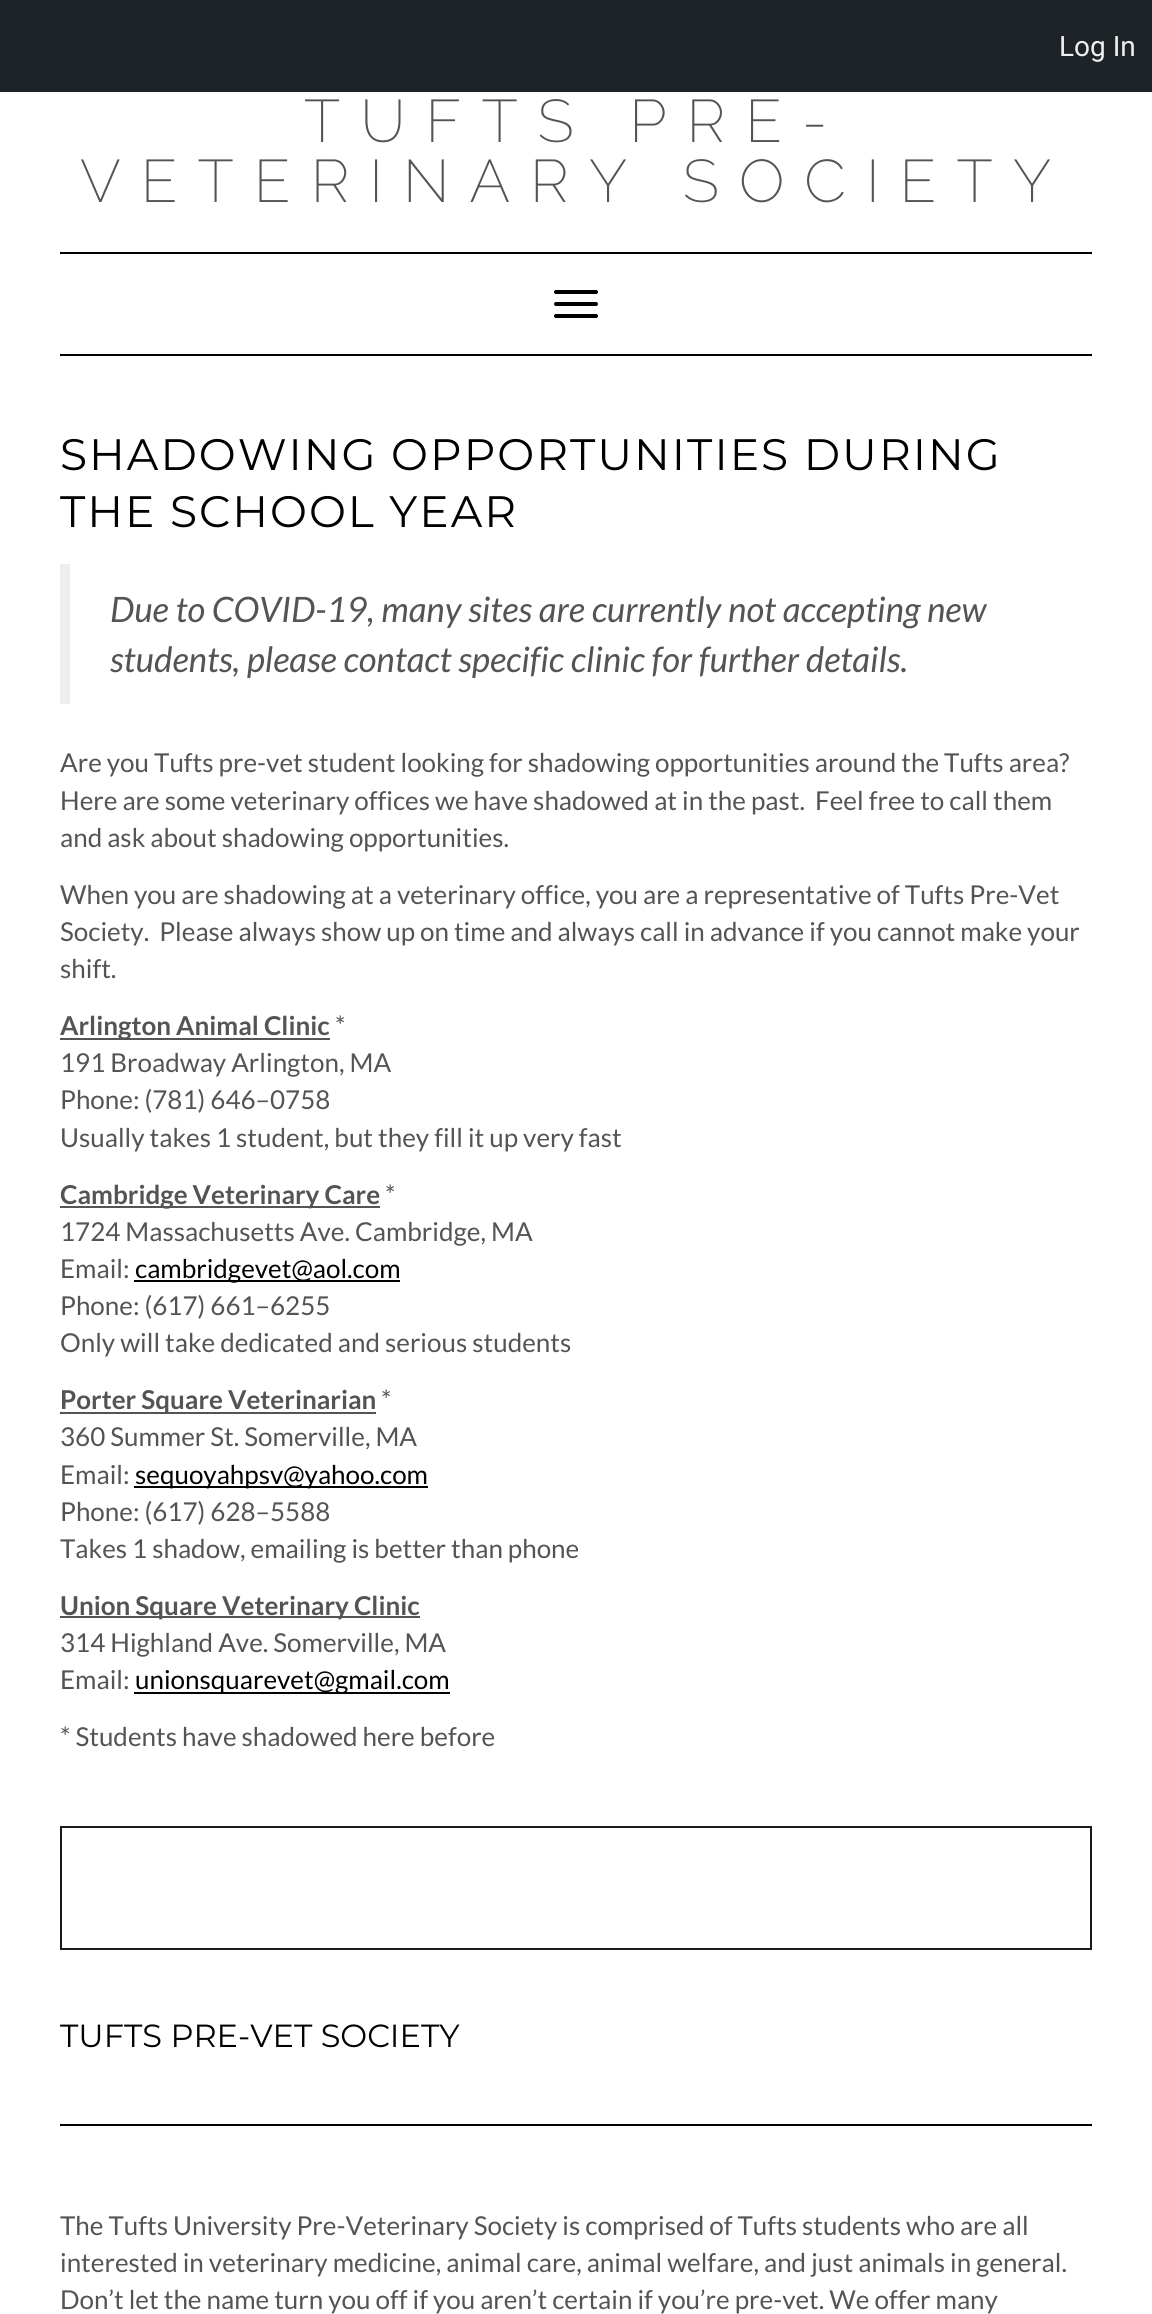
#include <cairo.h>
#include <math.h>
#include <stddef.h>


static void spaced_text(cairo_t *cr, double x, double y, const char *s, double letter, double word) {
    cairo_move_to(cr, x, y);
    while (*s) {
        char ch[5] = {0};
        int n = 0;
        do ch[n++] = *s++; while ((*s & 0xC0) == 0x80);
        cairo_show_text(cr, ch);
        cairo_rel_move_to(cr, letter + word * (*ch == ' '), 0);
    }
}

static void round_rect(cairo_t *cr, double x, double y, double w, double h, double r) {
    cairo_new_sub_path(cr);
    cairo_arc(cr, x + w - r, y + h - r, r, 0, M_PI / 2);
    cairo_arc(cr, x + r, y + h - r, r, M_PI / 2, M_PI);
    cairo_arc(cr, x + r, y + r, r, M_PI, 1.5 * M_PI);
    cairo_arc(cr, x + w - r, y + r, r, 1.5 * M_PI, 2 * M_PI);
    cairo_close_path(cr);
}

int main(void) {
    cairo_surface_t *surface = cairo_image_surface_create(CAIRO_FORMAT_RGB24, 1152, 2314);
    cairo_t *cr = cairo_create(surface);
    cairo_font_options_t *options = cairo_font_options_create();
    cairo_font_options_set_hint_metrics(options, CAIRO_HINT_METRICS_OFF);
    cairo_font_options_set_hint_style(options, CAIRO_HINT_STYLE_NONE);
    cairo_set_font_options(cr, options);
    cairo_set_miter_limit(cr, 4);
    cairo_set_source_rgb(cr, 1, 1, 1);
    cairo_paint(cr);
    cairo_set_source_rgb(cr, 0.114, 0.137, 0.153);
    cairo_rectangle(cr, 0, 0, 1152, 92);
    cairo_fill(cr);
    cairo_select_font_face(cr, "Roboto", CAIRO_FONT_SLANT_NORMAL, CAIRO_FONT_WEIGHT_NORMAL);
    cairo_set_font_size(cr, 28);
    cairo_set_source_rgb(cr, 0.941, 0.941, 0.945);
    cairo_move_to(cr, 1059, 56);
    cairo_show_text(cr, "Log In");
    cairo_select_font_face(cr, "Raleway Thin", CAIRO_FONT_SLANT_NORMAL, CAIRO_FONT_WEIGHT_NORMAL);
    cairo_set_font_size(cr, 60);
    cairo_set_source_rgb(cr, 0.329, 0.329, 0.329);
    spaced_text(cr, 304, 142, "TUFTS PRE-", 20, 0);
    spaced_text(cr, 80, 202, "VETERINARY SOCIETY", 20, 0);
    cairo_set_source_rgb(cr, 0, 0, 0);
    cairo_rectangle(cr, 60, 252, 1032, 2);
    cairo_fill(cr);
    cairo_rectangle(cr, 60, 354, 1032, 2);
    cairo_fill(cr);
    round_rect(cr, 554, 290, 44, 4, 2);
    cairo_fill(cr);
    round_rect(cr, 554, 302, 44, 4, 2);
    cairo_fill(cr);
    round_rect(cr, 554, 314, 44, 4, 2);
    cairo_fill(cr);
    cairo_select_font_face(cr, "Montserrat", CAIRO_FONT_SLANT_NORMAL, CAIRO_FONT_WEIGHT_NORMAL);
    cairo_set_font_size(cr, 44);
    spaced_text(cr, 60, 470, "SHADOWING OPPORTUNITIES DURING", 2, 0);
    spaced_text(cr, 60, 527, "THE SCHOOL YEAR", 2, 0);
    cairo_set_source_rgb(cr, 0.933, 0.933, 0.933);
    cairo_rectangle(cr, 60, 564, 10, 140);
    cairo_fill(cr);
    cairo_select_font_face(cr, "Lato", CAIRO_FONT_SLANT_ITALIC, CAIRO_FONT_WEIGHT_NORMAL);
    cairo_set_font_size(cr, 35);
    cairo_set_source_rgb(cr, 0.329, 0.329, 0.329);
    cairo_move_to(cr, 110, 622);
    cairo_show_text(cr, "Due to COVID-19, many sites are currently not accepting new");
    cairo_move_to(cr, 110, 672);
    cairo_show_text(cr, "students, please contact specific clinic for further details.");
    cairo_select_font_face(cr, "Lato", CAIRO_FONT_SLANT_NORMAL, CAIRO_FONT_WEIGHT_NORMAL);
    cairo_set_font_size(cr, 26);
    cairo_move_to(cr, 60, 772);
    cairo_show_text(cr, "Are you Tufts pre-vet student looking for shadowing opportunities around the Tufts area?");
    cairo_move_to(cr, 60, 810);
    cairo_show_text(cr, "Here are some veterinary offices we have shadowed at in the past.  Feel free to call them");
    cairo_move_to(cr, 60, 847);
    cairo_show_text(cr, "and ask about shadowing opportunities.");
    cairo_move_to(cr, 60, 904);
    cairo_show_text(cr, "When you are shadowing at a veterinary office, you are a representative of Tufts Pre-Vet");
    cairo_move_to(cr, 60, 941);
    cairo_show_text(cr, "Society.  Please always show up on time and always call in advance if you cannot make your");
    cairo_move_to(cr, 60, 978);
    cairo_show_text(cr, "shift.");
    cairo_rectangle(cr, 60, 1038, 270, 2);
    cairo_fill(cr);
    cairo_select_font_face(cr, "Lato", CAIRO_FONT_SLANT_NORMAL, CAIRO_FONT_WEIGHT_BOLD);
    cairo_move_to(cr, 60, 1035);
    cairo_show_text(cr, "Arlington Animal Clinic");
    cairo_select_font_face(cr, "Lato", CAIRO_FONT_SLANT_NORMAL, CAIRO_FONT_WEIGHT_NORMAL);
    cairo_move_to(cr, 335, 1035);
    cairo_show_text(cr, "*");
    cairo_move_to(cr, 60, 1072);
    cairo_show_text(cr, "191 Broadway Arlington, MA");
    cairo_move_to(cr, 60, 1109);
    cairo_show_text(cr, "Phone: (781) 646–0758");
    cairo_move_to(cr, 60, 1147);
    cairo_show_text(cr, "Usually takes 1 student, but they fill it up very fast");
    cairo_rectangle(cr, 60, 1206, 320, 2);
    cairo_fill(cr);
    cairo_select_font_face(cr, "Lato", CAIRO_FONT_SLANT_NORMAL, CAIRO_FONT_WEIGHT_BOLD);
    cairo_move_to(cr, 60, 1204);
    cairo_show_text(cr, "Cambridge Veterinary Care");
    cairo_select_font_face(cr, "Lato", CAIRO_FONT_SLANT_NORMAL, CAIRO_FONT_WEIGHT_NORMAL);
    cairo_move_to(cr, 385, 1204);
    cairo_show_text(cr, "*");
    cairo_move_to(cr, 60, 1241);
    cairo_show_text(cr, "1724 Massachusetts Ave. Cambridge, MA");
    cairo_move_to(cr, 60, 1278);
    cairo_show_text(cr, "Email:");
    cairo_set_source_rgb(cr, 0, 0, 0);
    cairo_rectangle(cr, 134, 1280, 266, 2);
    cairo_fill(cr);
    cairo_move_to(cr, 135, 1278);
    cairo_show_text(cr, "cambridgevet@aol.com");
    cairo_set_source_rgb(cr, 0.329, 0.329, 0.329);
    cairo_move_to(cr, 60, 1315);
    cairo_show_text(cr, "Phone: (617) 661–6255");
    cairo_move_to(cr, 60, 1352);
    cairo_show_text(cr, "Only will take dedicated and serious students");
    cairo_rectangle(cr, 60, 1412, 316, 2);
    cairo_fill(cr);
    cairo_select_font_face(cr, "Lato", CAIRO_FONT_SLANT_NORMAL, CAIRO_FONT_WEIGHT_BOLD);
    cairo_move_to(cr, 60, 1409);
    cairo_show_text(cr, "Porter Square Veterinarian");
    cairo_select_font_face(cr, "Lato", CAIRO_FONT_SLANT_NORMAL, CAIRO_FONT_WEIGHT_NORMAL);
    cairo_move_to(cr, 381, 1409);
    cairo_show_text(cr, "*");
    cairo_move_to(cr, 60, 1446);
    cairo_show_text(cr, "360 Summer St. Somerville, MA");
    cairo_move_to(cr, 60, 1484);
    cairo_show_text(cr, "Email:");
    cairo_set_source_rgb(cr, 0, 0, 0);
    cairo_rectangle(cr, 134, 1486, 294, 2);
    cairo_fill(cr);
    cairo_move_to(cr, 135, 1484);
    cairo_show_text(cr, "sequoyahpsv@yahoo.com");
    cairo_set_source_rgb(cr, 0.329, 0.329, 0.329);
    cairo_move_to(cr, 60, 1521);
    cairo_show_text(cr, "Phone: (617) 628–5588");
    cairo_move_to(cr, 60, 1558);
    cairo_show_text(cr, "Takes 1 shadow, emailing is better than phone");
    cairo_rectangle(cr, 60, 1616, 360, 2);
    cairo_fill(cr);
    cairo_select_font_face(cr, "Lato", CAIRO_FONT_SLANT_NORMAL, CAIRO_FONT_WEIGHT_BOLD);
    cairo_move_to(cr, 60, 1615);
    cairo_show_text(cr, "Union Square Veterinary Clinic");
    cairo_select_font_face(cr, "Lato", CAIRO_FONT_SLANT_NORMAL, CAIRO_FONT_WEIGHT_NORMAL);
    cairo_move_to(cr, 60, 1652);
    cairo_show_text(cr, "314 Highland Ave. Somerville, MA");
    cairo_move_to(cr, 60, 1689);
    cairo_show_text(cr, "Email:");
    cairo_set_source_rgb(cr, 0, 0, 0);
    cairo_rectangle(cr, 134, 1692, 316, 2);
    cairo_fill(cr);
    cairo_move_to(cr, 135, 1689);
    cairo_show_text(cr, "unionsquarevet@gmail.com");
    cairo_set_source_rgb(cr, 0.329, 0.329, 0.329);
    cairo_move_to(cr, 60, 1746);
    cairo_show_text(cr, "* Students have shadowed here before");
    cairo_rectangle(cr, 61, 1827, 1030, 122);
    cairo_set_source_rgb(cr, 0.102, 0.102, 0.102);
    cairo_stroke(cr);
    cairo_select_font_face(cr, "Montserrat", CAIRO_FONT_SLANT_NORMAL, CAIRO_FONT_WEIGHT_NORMAL);
    cairo_set_font_size(cr, 32);
    cairo_set_source_rgb(cr, 0, 0, 0);
    cairo_move_to(cr, 60, 2047);
    cairo_show_text(cr, "TUFTS PRE-VET SOCIETY");
    cairo_rectangle(cr, 60, 2124, 1032, 2);
    cairo_fill(cr);
    cairo_select_font_face(cr, "Lato", CAIRO_FONT_SLANT_NORMAL, CAIRO_FONT_WEIGHT_NORMAL);
    cairo_set_font_size(cr, 26);
    cairo_set_source_rgb(cr, 0.329, 0.329, 0.329);
    cairo_move_to(cr, 60, 2235);
    cairo_show_text(cr, "The Tufts University Pre-Veterinary Society is comprised of Tufts students who are all");
    cairo_move_to(cr, 60, 2272);
    cairo_show_text(cr, "interested in veterinary medicine, animal care, animal welfare, and just animals in general.");
    cairo_move_to(cr, 60, 2309);
    cairo_show_text(cr, "Don’t let the name turn you off if you aren’t certain if you’re pre-vet. We offer many");
    cairo_surface_write_to_png(surface, "page.png");
    cairo_font_options_destroy(options);
    cairo_destroy(cr);
    cairo_surface_destroy(surface);
    return 0;
}
